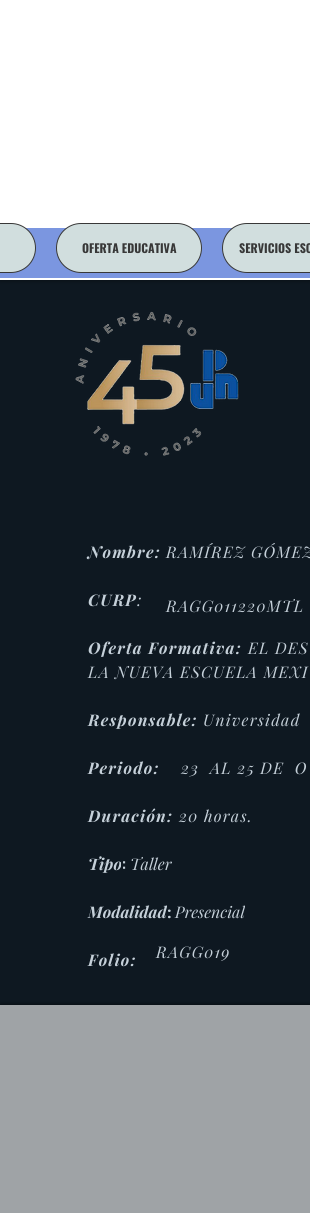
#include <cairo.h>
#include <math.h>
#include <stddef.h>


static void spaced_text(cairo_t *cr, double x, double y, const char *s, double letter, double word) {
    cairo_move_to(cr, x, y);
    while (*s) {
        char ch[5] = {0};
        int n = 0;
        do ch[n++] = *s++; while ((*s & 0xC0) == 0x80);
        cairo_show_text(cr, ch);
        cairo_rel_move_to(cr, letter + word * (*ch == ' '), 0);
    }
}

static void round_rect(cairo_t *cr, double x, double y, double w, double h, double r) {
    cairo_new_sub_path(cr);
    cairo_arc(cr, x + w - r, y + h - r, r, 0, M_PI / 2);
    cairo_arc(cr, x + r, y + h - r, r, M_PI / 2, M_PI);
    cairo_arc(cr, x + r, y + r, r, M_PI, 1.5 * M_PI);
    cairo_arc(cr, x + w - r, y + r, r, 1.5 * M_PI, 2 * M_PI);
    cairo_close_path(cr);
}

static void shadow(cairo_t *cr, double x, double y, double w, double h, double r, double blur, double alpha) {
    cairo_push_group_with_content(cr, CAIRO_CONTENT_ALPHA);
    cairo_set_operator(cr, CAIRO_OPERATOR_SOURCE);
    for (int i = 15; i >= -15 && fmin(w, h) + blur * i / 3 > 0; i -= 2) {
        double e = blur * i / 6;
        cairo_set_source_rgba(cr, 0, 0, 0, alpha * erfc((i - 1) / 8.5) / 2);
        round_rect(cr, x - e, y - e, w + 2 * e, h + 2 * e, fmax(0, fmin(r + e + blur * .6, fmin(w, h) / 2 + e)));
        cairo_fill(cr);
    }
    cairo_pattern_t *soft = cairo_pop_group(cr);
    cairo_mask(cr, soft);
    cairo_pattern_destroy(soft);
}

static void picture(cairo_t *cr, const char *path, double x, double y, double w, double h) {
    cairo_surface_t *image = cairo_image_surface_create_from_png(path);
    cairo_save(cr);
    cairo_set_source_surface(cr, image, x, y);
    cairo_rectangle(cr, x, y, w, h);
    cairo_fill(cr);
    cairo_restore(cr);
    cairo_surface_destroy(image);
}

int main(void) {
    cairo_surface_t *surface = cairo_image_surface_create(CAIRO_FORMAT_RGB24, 310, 1213);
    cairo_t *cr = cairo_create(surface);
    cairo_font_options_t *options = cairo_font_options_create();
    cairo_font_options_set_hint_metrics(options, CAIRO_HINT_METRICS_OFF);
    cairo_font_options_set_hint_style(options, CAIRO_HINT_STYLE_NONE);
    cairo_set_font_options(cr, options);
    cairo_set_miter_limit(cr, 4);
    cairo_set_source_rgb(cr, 0.055, 0.094, 0.129);
    cairo_paint(cr);
    cairo_set_source_rgb(cr, 0, 0, 0);
    shadow(cr, 0, 0, 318, 280, 0, 2.5, 0.5);
    cairo_set_source_rgb(cr, 1, 1, 1);
    cairo_rectangle(cr, 0, 0, 310, 280);
    cairo_fill(cr);
    cairo_set_source_rgb(cr, 0.482, 0.588, 0.878);
    cairo_rectangle(cr, 0, 228, 310, 50);
    cairo_fill(cr);
    cairo_set_source_rgb(cr, 0.82, 0.871, 0.871);
    round_rect(cr, -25.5, 223.5, 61, 49, 24.5);
    cairo_fill_preserve(cr);
    cairo_set_source_rgb(cr, 0.22, 0.22, 0.22);
    cairo_set_line_width(cr, 1);
    cairo_stroke(cr);
    cairo_set_source_rgb(cr, 0.82, 0.871, 0.871);
    round_rect(cr, 56.5, 223.5, 145, 49, 24.5);
    cairo_fill_preserve(cr);
    cairo_set_source_rgb(cr, 0.22, 0.22, 0.22);
    cairo_stroke(cr);
    cairo_select_font_face(cr, "Oswald", CAIRO_FONT_SLANT_NORMAL, CAIRO_FONT_WEIGHT_BOLD);
    cairo_set_font_size(cr, 12);
    cairo_move_to(cr, 82, 253);
    cairo_show_text(cr, "OFERTA EDUCATIVA");
    cairo_set_source_rgb(cr, 0.82, 0.871, 0.871);
    round_rect(cr, 222.5, 223.5, 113, 49, 24.5);
    cairo_fill_preserve(cr);
    cairo_set_source_rgb(cr, 0.22, 0.22, 0.22);
    cairo_stroke(cr);
    cairo_move_to(cr, 239, 253);
    cairo_show_text(cr, "SERVICIOS ESC");
    picture(cr, "img1.png", 75, 311, 164, 145);
    cairo_select_font_face(cr, "Playfair Display", CAIRO_FONT_SLANT_ITALIC, CAIRO_FONT_WEIGHT_NORMAL);
    cairo_set_font_size(cr, 16);
    cairo_set_source_rgb(cr, 0.773, 0.816, 0.851);
    spaced_text(cr, 166, 558, "RAMÍREZ GÓMEZ", 1.25, 0);
    cairo_select_font_face(cr, "Playfair Display", CAIRO_FONT_SLANT_ITALIC, CAIRO_FONT_WEIGHT_BOLD);
    spaced_text(cr, 88, 558, "Nombre:", 1.25, 0);
    spaced_text(cr, 88, 606, "CURP", 1.25, 0);
    cairo_select_font_face(cr, "Playfair Display", CAIRO_FONT_SLANT_ITALIC, CAIRO_FONT_WEIGHT_NORMAL);
    spaced_text(cr, 137, 606, ":", 1.25, 0);
    cairo_select_font_face(cr, "Playfair Display", CAIRO_FONT_SLANT_ITALIC, CAIRO_FONT_WEIGHT_BOLD);
    spaced_text(cr, 88, 654, "Oferta Formativa:", 1.25, 0);
    cairo_select_font_face(cr, "Playfair Display", CAIRO_FONT_SLANT_ITALIC, CAIRO_FONT_WEIGHT_NORMAL);
    spaced_text(cr, 248, 654, "EL DES", 1.25, 0);
    spaced_text(cr, 88, 678, "LA NUEVA ESCUELA MEXI", 1.25, 0);
    cairo_select_font_face(cr, "Playfair Display", CAIRO_FONT_SLANT_ITALIC, CAIRO_FONT_WEIGHT_BOLD);
    spaced_text(cr, 88, 726, "Responsable:", 1.25, 0);
    cairo_select_font_face(cr, "Playfair Display", CAIRO_FONT_SLANT_ITALIC, CAIRO_FONT_WEIGHT_NORMAL);
    spaced_text(cr, 203, 726, "Universidad", 1.25, 0);
    cairo_select_font_face(cr, "Playfair Display", CAIRO_FONT_SLANT_ITALIC, CAIRO_FONT_WEIGHT_BOLD);
    spaced_text(cr, 88, 774, "Periodo:", 1.25, 0);
    cairo_select_font_face(cr, "Playfair Display", CAIRO_FONT_SLANT_ITALIC, CAIRO_FONT_WEIGHT_NORMAL);
    spaced_text(cr, 181, 774, "23  AL 25 DE  O", 1.25, 0);
    cairo_select_font_face(cr, "Playfair Display", CAIRO_FONT_SLANT_ITALIC, CAIRO_FONT_WEIGHT_BOLD);
    spaced_text(cr, 88, 822, "Duración:", 1.25, 0);
    cairo_select_font_face(cr, "Playfair Display", CAIRO_FONT_SLANT_ITALIC, CAIRO_FONT_WEIGHT_NORMAL);
    spaced_text(cr, 179, 822, "20 horas.", 1.25, 0);
    cairo_select_font_face(cr, "Playfair Display", CAIRO_FONT_SLANT_ITALIC, CAIRO_FONT_WEIGHT_BOLD);
    cairo_move_to(cr, 88, 870);
    cairo_show_text(cr, "Tipo");
    cairo_select_font_face(cr, "Oswald Medium", CAIRO_FONT_SLANT_NORMAL, CAIRO_FONT_WEIGHT_NORMAL);
    cairo_move_to(cr, 122, 870);
    cairo_show_text(cr, ":");
    cairo_select_font_face(cr, "Playfair Display", CAIRO_FONT_SLANT_ITALIC, CAIRO_FONT_WEIGHT_NORMAL);
    cairo_move_to(cr, 130, 870);
    cairo_show_text(cr, "Taller");
    cairo_select_font_face(cr, "Playfair Display", CAIRO_FONT_SLANT_ITALIC, CAIRO_FONT_WEIGHT_BOLD);
    cairo_move_to(cr, 88, 918);
    cairo_show_text(cr, "Modalidad");
    cairo_select_font_face(cr, "Playfair Display", CAIRO_FONT_SLANT_NORMAL, CAIRO_FONT_WEIGHT_BOLD);
    cairo_move_to(cr, 167, 918);
    cairo_show_text(cr, ":");
    cairo_select_font_face(cr, "Playfair Display", CAIRO_FONT_SLANT_ITALIC, CAIRO_FONT_WEIGHT_NORMAL);
    cairo_move_to(cr, 175, 918);
    cairo_show_text(cr, "Presencial");
    cairo_select_font_face(cr, "Playfair Display", CAIRO_FONT_SLANT_ITALIC, CAIRO_FONT_WEIGHT_BOLD);
    spaced_text(cr, 88, 966, "Folio:", 1.25, 0);
    cairo_select_font_face(cr, "Playfair Display", CAIRO_FONT_SLANT_ITALIC, CAIRO_FONT_WEIGHT_NORMAL);
    spaced_text(cr, 166, 612, "RAGG011220MTL", 1.25, 0);
    spaced_text(cr, 156, 958, "RAGG019", 1.25, 0);
    cairo_set_source_rgb(cr, 0, 0, 0);
    shadow(cr, 0, 1005, 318, 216, 0, 2.5, 0.7);
    cairo_set_source_rgb(cr, 0.624, 0.639, 0.651);
    cairo_rectangle(cr, 0, 1005, 310, 208);
    cairo_fill(cr);
    cairo_surface_write_to_png(surface, "page.png");
    cairo_font_options_destroy(options);
    cairo_destroy(cr);
    cairo_surface_destroy(surface);
    return 0;
}
